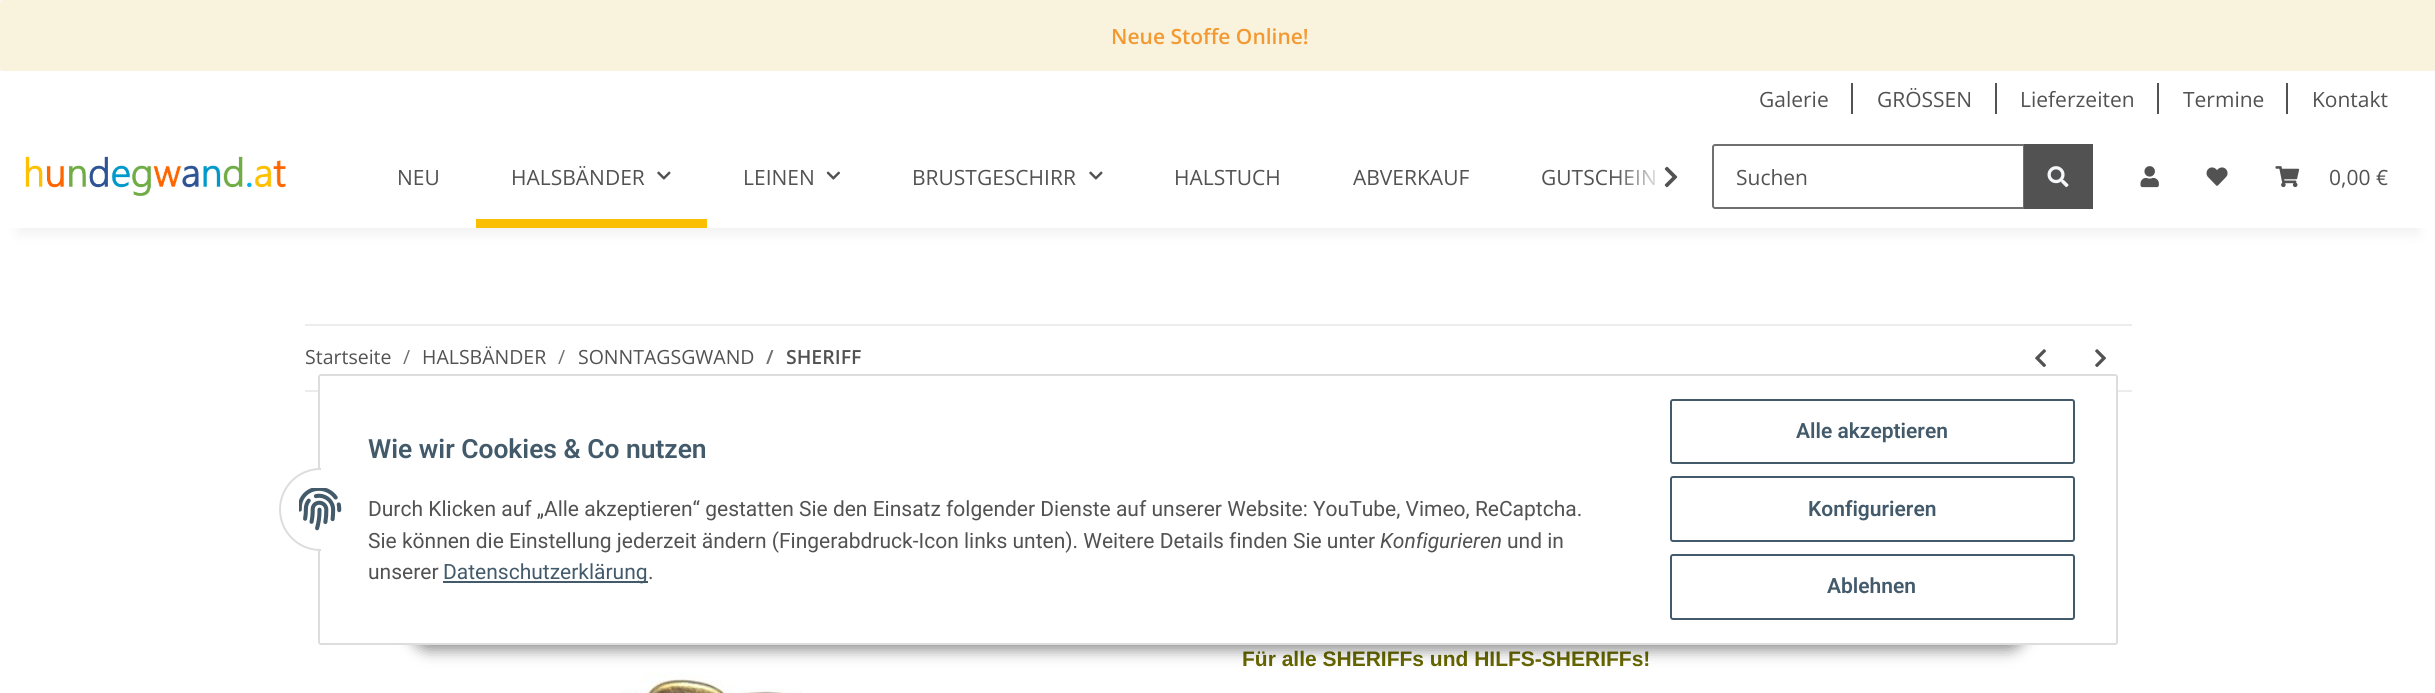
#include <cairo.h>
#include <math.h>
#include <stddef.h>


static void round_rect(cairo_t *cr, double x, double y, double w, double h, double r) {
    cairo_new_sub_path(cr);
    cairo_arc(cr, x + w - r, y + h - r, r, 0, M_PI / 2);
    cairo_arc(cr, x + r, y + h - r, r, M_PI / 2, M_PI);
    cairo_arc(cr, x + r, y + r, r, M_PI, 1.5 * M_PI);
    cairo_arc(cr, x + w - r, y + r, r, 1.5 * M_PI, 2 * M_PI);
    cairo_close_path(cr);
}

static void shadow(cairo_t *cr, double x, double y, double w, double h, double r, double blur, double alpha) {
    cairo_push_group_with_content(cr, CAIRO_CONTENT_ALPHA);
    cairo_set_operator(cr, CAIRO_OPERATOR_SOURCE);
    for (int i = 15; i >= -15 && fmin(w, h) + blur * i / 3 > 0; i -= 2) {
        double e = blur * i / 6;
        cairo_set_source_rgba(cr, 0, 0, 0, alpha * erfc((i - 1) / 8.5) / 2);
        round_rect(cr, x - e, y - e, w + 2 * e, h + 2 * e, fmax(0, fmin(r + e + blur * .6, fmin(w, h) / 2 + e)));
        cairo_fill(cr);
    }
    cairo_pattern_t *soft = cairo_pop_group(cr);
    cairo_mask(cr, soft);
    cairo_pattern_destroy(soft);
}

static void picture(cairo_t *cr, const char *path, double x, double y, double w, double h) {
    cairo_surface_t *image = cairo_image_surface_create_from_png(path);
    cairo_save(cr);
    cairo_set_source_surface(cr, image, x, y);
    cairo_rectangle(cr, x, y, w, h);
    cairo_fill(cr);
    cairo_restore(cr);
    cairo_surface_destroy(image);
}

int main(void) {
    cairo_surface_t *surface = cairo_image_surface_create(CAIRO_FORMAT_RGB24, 2435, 693);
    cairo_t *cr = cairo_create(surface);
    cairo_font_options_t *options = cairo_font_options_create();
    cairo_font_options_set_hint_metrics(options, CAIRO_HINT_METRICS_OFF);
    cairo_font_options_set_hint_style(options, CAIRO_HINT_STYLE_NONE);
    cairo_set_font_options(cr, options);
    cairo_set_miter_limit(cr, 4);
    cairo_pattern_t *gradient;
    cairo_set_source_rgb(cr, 0.961, 0.969, 0.98);
    cairo_paint(cr);
    cairo_set_source_rgb(cr, 0.976, 0.949, 0.863);
    round_rect(cr, 1, 1, 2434, 69, 2);
    cairo_fill_preserve(cr);
    cairo_stroke(cr);
    cairo_select_font_face(cr, "Open Sans SemiBold", CAIRO_FONT_SLANT_NORMAL, CAIRO_FONT_WEIGHT_NORMAL);
    cairo_set_font_size(cr, 21);
    cairo_set_source_rgb(cr, 0.953, 0.6, 0.196);
    cairo_move_to(cr, 1111, 44);
    cairo_show_text(cr, "Neue Stoffe Online!");
    cairo_set_source_rgb(cr, 1, 1, 1);
    cairo_rectangle(cr, 0, 228, 2435, 465);
    cairo_fill(cr);
    cairo_set_source_rgb(cr, 0, 0, 0);
    shadow(cr, 18, 168, 2400, 66, 0, 7, 0.06);
    cairo_set_source_rgb(cr, 1, 1, 1);
    cairo_rectangle(cr, 0, 71, 2435, 157);
    cairo_fill(cr);
    cairo_select_font_face(cr, "Open Sans", CAIRO_FONT_SLANT_NORMAL, CAIRO_FONT_WEIGHT_NORMAL);
    cairo_set_source_rgb(cr, 0.322, 0.322, 0.322);
    cairo_move_to(cr, 1759, 107);
    cairo_show_text(cr, "Galerie");
    cairo_rectangle(cr, 1851, 83, 2, 31);
    cairo_fill(cr);
    cairo_move_to(cr, 1877, 107);
    cairo_show_text(cr, "GRÖSSEN");
    cairo_rectangle(cr, 1995, 83, 2, 31);
    cairo_fill(cr);
    cairo_move_to(cr, 2020, 107);
    cairo_show_text(cr, "Lieferzeiten");
    cairo_rectangle(cr, 2157, 83, 2, 31);
    cairo_fill(cr);
    cairo_move_to(cr, 2183, 107);
    cairo_show_text(cr, "Termine");
    cairo_rectangle(cr, 2286, 83, 2, 31);
    cairo_fill(cr);
    cairo_move_to(cr, 2312, 107);
    cairo_show_text(cr, "Kontakt");
    picture(cr, "img1.png", 25, 156, 261, 40);
    cairo_move_to(cr, 397, 185);
    cairo_show_text(cr, "NEU");
    cairo_move_to(cr, 511, 185);
    cairo_show_text(cr, "HALSBÄNDER");
    picture(cr, "img2.png", 657, 171, 14, 9);
    cairo_set_source_rgb(cr, 0.973, 0.749, 0);
    cairo_rectangle(cr, 476, 219, 231, 9);
    cairo_fill(cr);
    cairo_set_source_rgb(cr, 0.322, 0.322, 0.322);
    cairo_move_to(cr, 743, 185);
    cairo_show_text(cr, "LEINEN");
    picture(cr, "img3.png", 826, 171, 14, 9);
    cairo_move_to(cr, 912, 185);
    cairo_show_text(cr, "BRUSTGESCHIRR");
    picture(cr, "img2.png", 1089, 171, 14, 9);
    cairo_move_to(cr, 1174, 185);
    cairo_show_text(cr, "HALSTUCH");
    cairo_move_to(cr, 1353, 185);
    cairo_show_text(cr, "ABVERKAUF");
    cairo_move_to(cr, 1541, 185);
    cairo_show_text(cr, "GUTSCHEIN");
    gradient = cairo_pattern_create_linear(1616, 177, 1688, 177);
    cairo_pattern_add_color_stop_rgba(gradient, 0, 1, 1, 1, 0.01);
    cairo_pattern_add_color_stop_rgba(gradient, 0.7, 1, 1, 1, 1);
    cairo_set_source(cr, gradient);
    cairo_pattern_destroy(gradient);
    cairo_rectangle(cr, 1617, 170, 38, 15);
    cairo_fill(cr);
    picture(cr, "img4.png", 1664, 166, 14, 22);
    cairo_new_path(cr);
    cairo_move_to(cr, 1715, 145);
    cairo_line_to(cr, 2024, 145);
    cairo_line_to(cr, 2024, 208);
    cairo_line_to(cr, 1715, 208);
    cairo_curve_to(cr, 1714, 208, 1713, 207, 1713, 206);
    cairo_line_to(cr, 1713, 147);
    cairo_curve_to(cr, 1713, 146, 1714, 145, 1715, 145);
    cairo_close_path(cr);
    cairo_set_source_rgb(cr, 0.439, 0.439, 0.439);
    cairo_stroke(cr);
    cairo_set_source_rgb(cr, 0.322, 0.322, 0.322);
    cairo_move_to(cr, 1736, 185);
    cairo_show_text(cr, "Suchen");
    cairo_rectangle(cr, 2024, 144, 69, 65);
    cairo_fill(cr);
    picture(cr, "img5.png", 2047, 166, 22, 22);
    picture(cr, "img6.png", 2140, 166, 19, 22);
    picture(cr, "img7.png", 2206, 167, 22, 19);
    picture(cr, "img8.png", 2275, 166, 25, 22);
    cairo_move_to(cr, 2329, 185);
    cairo_show_text(cr, "0,00 €");
    cairo_set_source_rgb(cr, 0.922, 0.922, 0.922);
    cairo_rectangle(cr, 305, 324, 1827, 2);
    cairo_fill(cr);
    cairo_rectangle(cr, 305, 390, 1827, 2);
    cairo_fill(cr);
    cairo_set_font_size(cr, 19.5);
    cairo_set_source_rgb(cr, 0.322, 0.322, 0.322);
    cairo_move_to(cr, 305, 364);
    cairo_show_text(cr, "Startseite");
    cairo_set_source_rgb(cr, 0.439, 0.439, 0.439);
    cairo_move_to(cr, 403, 364);
    cairo_show_text(cr, "/");
    cairo_set_source_rgb(cr, 0.322, 0.322, 0.322);
    cairo_move_to(cr, 422, 364);
    cairo_show_text(cr, "HALSBÄNDER");
    cairo_set_source_rgb(cr, 0.439, 0.439, 0.439);
    cairo_move_to(cr, 558, 364);
    cairo_show_text(cr, "/");
    cairo_set_source_rgb(cr, 0.322, 0.322, 0.322);
    cairo_move_to(cr, 578, 364);
    cairo_show_text(cr, "SONNTAGSGWAND");
    cairo_select_font_face(cr, "Open Sans SemiBold", CAIRO_FONT_SLANT_NORMAL, CAIRO_FONT_WEIGHT_NORMAL);
    cairo_set_source_rgb(cr, 0.439, 0.439, 0.439);
    cairo_move_to(cr, 766, 364);
    cairo_show_text(cr, "/");
    cairo_set_source_rgb(cr, 0.322, 0.322, 0.322);
    cairo_move_to(cr, 786, 364);
    cairo_show_text(cr, "SHERIFF");
    picture(cr, "img9.png", 2035, 349, 11, 18);
    picture(cr, "img10.png", 2095, 349, 11, 18);
    cairo_select_font_face(cr, "Liberation Sans", CAIRO_FONT_SLANT_NORMAL, CAIRO_FONT_WEIGHT_BOLD);
    cairo_set_font_size(cr, 21);
    cairo_set_source_rgb(cr, 0.4, 0.4, 0);
    cairo_move_to(cr, 1242, 666);
    cairo_show_text(cr, "Für alle SHERIFFs und HILFS-SHERIFFs!");
    picture(cr, "img11.png", 620, 672, 182, 21);
    cairo_set_source_rgb(cr, 0, 0, 0);
    shadow(cr, 410, 602, 1617, 48, 24, 7.5, 0.45);
    cairo_set_source_rgb(cr, 1, 1, 1);
    round_rect(cr, 319, 375, 1798, 269, 2);
    cairo_fill_preserve(cr);
    cairo_set_source_rgb(cr, 0.867, 0.867, 0.867);
    cairo_stroke(cr);
    cairo_set_source_rgb(cr, 1, 1, 1);
    cairo_arc(cr, 320.5, 509.5, 40.5, 0, 2 * M_PI);
    cairo_fill_preserve(cr);
    cairo_set_source_rgb(cr, 0.867, 0.867, 0.867);
    cairo_stroke(cr);
    cairo_set_source_rgb(cr, 1, 1, 1);
    cairo_rectangle(cr, 321, 468, 41, 83);
    cairo_fill(cr);
    picture(cr, "img12.png", 299, 488, 43, 43);
    cairo_select_font_face(cr, "Roboto SemiBold", CAIRO_FONT_SLANT_NORMAL, CAIRO_FONT_WEIGHT_NORMAL);
    cairo_set_font_size(cr, 26.4);
    cairo_set_source_rgb(cr, 0.263, 0.353, 0.42);
    cairo_move_to(cr, 368, 458);
    cairo_show_text(cr, "Wie wir Cookies & Co nutzen");
    cairo_select_font_face(cr, "Roboto", CAIRO_FONT_SLANT_NORMAL, CAIRO_FONT_WEIGHT_NORMAL);
    cairo_set_font_size(cr, 21);
    cairo_set_source_rgb(cr, 0.322, 0.322, 0.322);
    cairo_move_to(cr, 368, 516);
    cairo_show_text(cr, "Durch Klicken auf „Alle akzeptieren“ gestatten Sie den Einsatz folgender Dienste auf unserer Website: YouTube, Vimeo, ReCaptcha.");
    cairo_move_to(cr, 368, 548);
    cairo_show_text(cr, "Sie können die Einstellung jederzeit ändern (Fingerabdruck-Icon links unten). Weitere Details finden Sie unter");
    cairo_select_font_face(cr, "Roboto", CAIRO_FONT_SLANT_ITALIC, CAIRO_FONT_WEIGHT_NORMAL);
    cairo_move_to(cr, 1380, 548);
    cairo_show_text(cr, "Konfigurieren");
    cairo_select_font_face(cr, "Roboto", CAIRO_FONT_SLANT_NORMAL, CAIRO_FONT_WEIGHT_NORMAL);
    cairo_move_to(cr, 1507, 548);
    cairo_show_text(cr, "und in");
    cairo_move_to(cr, 368, 579);
    cairo_show_text(cr, "unserer");
    cairo_set_source_rgb(cr, 0.263, 0.353, 0.42);
    cairo_rectangle(cr, 443, 581, 205, 2);
    cairo_fill(cr);
    cairo_move_to(cr, 443, 579);
    cairo_show_text(cr, "Datenschutzerklärung");
    cairo_set_source_rgb(cr, 0.322, 0.322, 0.322);
    cairo_move_to(cr, 648, 579);
    cairo_show_text(cr, ".");
    round_rect(cr, 1671, 400, 403, 63, 2);
    cairo_set_source_rgb(cr, 0.263, 0.353, 0.42);
    cairo_stroke(cr);
    cairo_select_font_face(cr, "Roboto SemiBold", CAIRO_FONT_SLANT_NORMAL, CAIRO_FONT_WEIGHT_NORMAL);
    cairo_move_to(cr, 1796, 438);
    cairo_show_text(cr, "Alle akzeptieren");
    round_rect(cr, 1671, 477, 403, 64, 2);
    cairo_stroke(cr);
    cairo_move_to(cr, 1808, 516);
    cairo_show_text(cr, "Konfigurieren");
    round_rect(cr, 1671, 555, 403, 64, 2);
    cairo_stroke(cr);
    cairo_move_to(cr, 1827, 593);
    cairo_show_text(cr, "Ablehnen");
    cairo_surface_write_to_png(surface, "page.png");
    cairo_font_options_destroy(options);
    cairo_destroy(cr);
    cairo_surface_destroy(surface);
    return 0;
}
